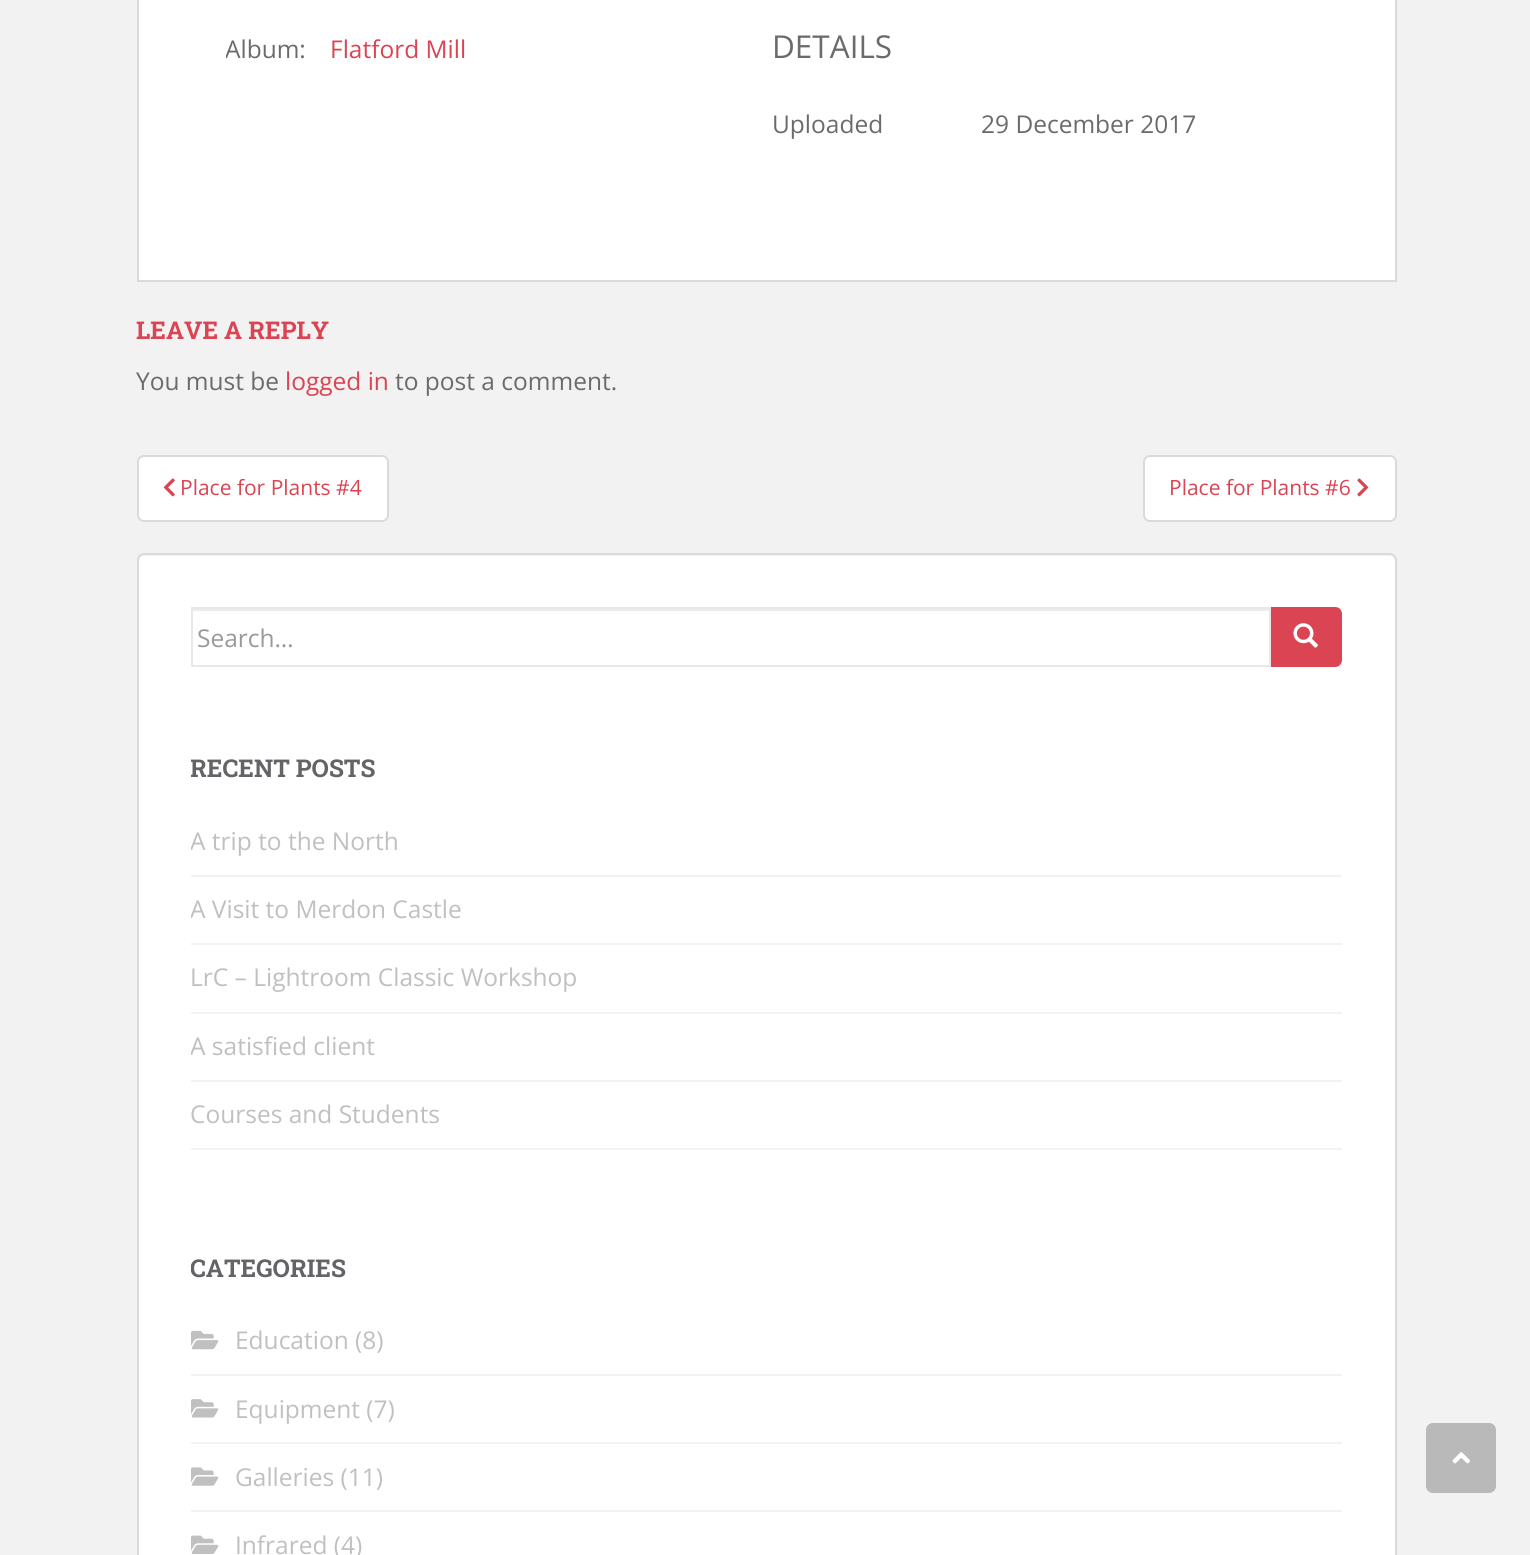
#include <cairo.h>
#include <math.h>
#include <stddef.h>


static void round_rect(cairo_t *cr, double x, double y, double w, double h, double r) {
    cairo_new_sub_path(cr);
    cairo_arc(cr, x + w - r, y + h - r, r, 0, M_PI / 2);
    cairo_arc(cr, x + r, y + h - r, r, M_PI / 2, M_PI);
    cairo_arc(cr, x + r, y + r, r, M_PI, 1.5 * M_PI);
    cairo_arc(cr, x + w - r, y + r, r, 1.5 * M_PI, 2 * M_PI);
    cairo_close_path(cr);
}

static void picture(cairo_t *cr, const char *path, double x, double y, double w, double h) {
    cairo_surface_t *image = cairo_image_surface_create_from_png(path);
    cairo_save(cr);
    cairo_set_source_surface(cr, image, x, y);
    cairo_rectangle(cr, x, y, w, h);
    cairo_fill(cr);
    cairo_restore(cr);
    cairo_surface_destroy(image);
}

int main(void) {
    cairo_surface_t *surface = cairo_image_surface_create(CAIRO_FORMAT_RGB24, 1530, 1555);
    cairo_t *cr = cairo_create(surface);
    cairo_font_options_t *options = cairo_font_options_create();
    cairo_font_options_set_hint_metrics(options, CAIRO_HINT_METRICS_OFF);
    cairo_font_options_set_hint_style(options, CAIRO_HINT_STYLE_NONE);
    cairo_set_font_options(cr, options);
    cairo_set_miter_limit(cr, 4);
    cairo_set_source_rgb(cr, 0.949, 0.949, 0.949);
    cairo_paint(cr);
    cairo_set_source_rgb(cr, 1, 1, 1);
    cairo_rectangle(cr, 138, -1, 1258, 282);
    cairo_fill_preserve(cr);
    cairo_set_source_rgb(cr, 0.855, 0.855, 0.855);
    cairo_stroke(cr);
    cairo_save(cr);
    cairo_rectangle(cr, 226, 28, 521, 44);
    cairo_clip(cr);
    cairo_select_font_face(cr, "Open Sans", CAIRO_FONT_SLANT_NORMAL, CAIRO_FONT_WEIGHT_NORMAL);
    cairo_set_font_size(cr, 24.5);
    cairo_set_source_rgb(cr, 0.42, 0.42, 0.42);
    cairo_move_to(cr, 225, 58);
    cairo_show_text(cr, "Album:");
    cairo_restore(cr);
    cairo_select_font_face(cr, "Open Sans", CAIRO_FONT_SLANT_NORMAL, CAIRO_FONT_WEIGHT_NORMAL);
    cairo_set_font_size(cr, 24.5);
    cairo_set_source_rgb(cr, 0.855, 0.267, 0.325);
    cairo_move_to(cr, 330, 58);
    cairo_show_text(cr, "Flatford Mill");
    cairo_set_font_size(cr, 31.5);
    cairo_set_source_rgb(cr, 0.42, 0.42, 0.42);
    cairo_move_to(cr, 772, 58);
    cairo_show_text(cr, "DETAILS");
    cairo_set_font_size(cr, 24.5);
    cairo_move_to(cr, 772, 133);
    cairo_show_text(cr, "Uploaded");
    cairo_move_to(cr, 981, 133);
    cairo_show_text(cr, "29 December 2017");
    cairo_select_font_face(cr, "Roboto Slab", CAIRO_FONT_SLANT_NORMAL, CAIRO_FONT_WEIGHT_BOLD);
    cairo_set_source_rgb(cr, 0.855, 0.267, 0.325);
    cairo_move_to(cr, 136, 339);
    cairo_show_text(cr, "LEAVE A REPLY");
    cairo_select_font_face(cr, "Open Sans", CAIRO_FONT_SLANT_NORMAL, CAIRO_FONT_WEIGHT_NORMAL);
    cairo_set_source_rgb(cr, 0.42, 0.42, 0.42);
    cairo_move_to(cr, 136, 390);
    cairo_show_text(cr, "You must be");
    cairo_set_source_rgb(cr, 0.855, 0.267, 0.325);
    cairo_move_to(cr, 285, 390);
    cairo_show_text(cr, "logged in");
    cairo_set_source_rgb(cr, 0.42, 0.42, 0.42);
    cairo_move_to(cr, 395, 390);
    cairo_show_text(cr, "to post a comment.");
    cairo_set_source_rgb(cr, 1, 1, 1);
    round_rect(cr, 138, 456, 250, 65, 6);
    cairo_fill_preserve(cr);
    cairo_set_source_rgb(cr, 0.855, 0.855, 0.855);
    cairo_stroke(cr);
    picture(cr, "img1.png", 163, 478, 12, 19);
    cairo_set_font_size(cr, 21);
    cairo_set_source_rgb(cr, 0.855, 0.267, 0.325);
    cairo_move_to(cr, 180, 495);
    cairo_show_text(cr, "Place for Plants #4");
    cairo_set_source_rgb(cr, 1, 1, 1);
    round_rect(cr, 1144, 456, 252, 65, 6);
    cairo_fill_preserve(cr);
    cairo_set_source_rgb(cr, 0.855, 0.855, 0.855);
    cairo_stroke(cr);
    cairo_set_source_rgb(cr, 0.855, 0.267, 0.325);
    cairo_move_to(cr, 1169, 495);
    cairo_show_text(cr, "Place for Plants #6");
    picture(cr, "img2.png", 1357, 478, 12, 19);
    cairo_set_source_rgb(cr, 1, 1, 1);
    round_rect(cr, 137, 553, 1260, 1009, 7);
    cairo_fill(cr);
    cairo_set_source_rgb(cr, 0.949, 0.949, 0.949);
    cairo_new_path(cr);
    cairo_move_to(cr, 144, 556);
    cairo_line_to(cr, 1390, 556);
    cairo_curve_to(cr, 1392, 556, 1395, 559, 1395, 562);
    cairo_line_to(cr, 1395, 560);
    cairo_curve_to(cr, 1395, 557, 1393, 555, 1390, 555);
    cairo_line_to(cr, 143, 555);
    cairo_curve_to(cr, 140, 555, 138, 557, 138, 560);
    cairo_line_to(cr, 138, 562);
    cairo_curve_to(cr, 138, 559, 141, 556, 144, 556);
    cairo_close_path(cr);
    cairo_fill(cr);
    round_rect(cr, 138, 554, 1258, 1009, 6);
    cairo_set_source_rgb(cr, 0.855, 0.855, 0.855);
    cairo_stroke(cr);
    cairo_set_source_rgb(cr, 0.925, 0.925, 0.925);
    cairo_rectangle(cr, 193, 609, 1076, 2);
    cairo_fill(cr);
    cairo_rectangle(cr, 192, 608, 1078, 58);
    cairo_set_source_rgb(cr, 0.91, 0.91, 0.91);
    cairo_stroke(cr);
    cairo_set_font_size(cr, 24.5);
    cairo_set_source_rgb(cr, 0.6, 0.6, 0.6);
    cairo_move_to(cr, 197, 647);
    cairo_show_text(cr, "Search…");
    cairo_set_source_rgb(cr, 0.855, 0.267, 0.325);
    cairo_new_path(cr);
    cairo_move_to(cr, 1272, 608);
    cairo_line_to(cr, 1335, 608);
    cairo_curve_to(cr, 1338.5, 608, 1341, 610.5, 1341, 614);
    cairo_line_to(cr, 1341, 660);
    cairo_curve_to(cr, 1341, 663.5, 1338.5, 666, 1335, 666);
    cairo_line_to(cr, 1272, 666);
    cairo_close_path(cr);
    cairo_fill_preserve(cr);
    cairo_stroke(cr);
    picture(cr, "img3.png", 1293, 623, 25, 25);
    cairo_save(cr);
    cairo_rectangle(cr, 191, 754, 1151, 413);
    cairo_clip(cr);
    cairo_select_font_face(cr, "Roboto Slab", CAIRO_FONT_SLANT_NORMAL, CAIRO_FONT_WEIGHT_BOLD);
    cairo_set_source_rgb(cr, 0.388, 0.392, 0.404);
    cairo_move_to(cr, 190, 777);
    cairo_show_text(cr, "RECENT POSTS");
    cairo_restore(cr);
    cairo_set_source_rgb(cr, 0.949, 0.949, 0.949);
    cairo_rectangle(cr, 191, 875, 1151, 2);
    cairo_fill(cr);
    cairo_save(cr);
    cairo_rectangle(cr, 191, 754, 1151, 413);
    cairo_clip(cr);
    cairo_set_source_rgb(cr, 0.757, 0.753, 0.753);
    cairo_move_to(cr, 190, 850);
    cairo_show_text(cr, "A trip to the North");
    cairo_restore(cr);
    cairo_rectangle(cr, 191, 943, 1151, 2);
    cairo_fill(cr);
    cairo_save(cr);
    cairo_rectangle(cr, 191, 754, 1151, 413);
    cairo_clip(cr);
    cairo_set_source_rgb(cr, 0.757, 0.753, 0.753);
    cairo_move_to(cr, 190, 918);
    cairo_show_text(cr, "A Visit to Merdon Castle");
    cairo_restore(cr);
    cairo_rectangle(cr, 191, 1012, 1151, 2);
    cairo_fill(cr);
    cairo_set_source_rgb(cr, 0.757, 0.753, 0.753);
    cairo_move_to(cr, 190, 986);
    cairo_show_text(cr, "LrC – Lightroom Classic Workshop");
    cairo_set_source_rgb(cr, 0.949, 0.949, 0.949);
    cairo_rectangle(cr, 191, 1080, 1151, 2);
    cairo_fill(cr);
    cairo_save(cr);
    cairo_rectangle(cr, 191, 754, 1151, 413);
    cairo_clip(cr);
    cairo_set_source_rgb(cr, 0.757, 0.753, 0.753);
    cairo_move_to(cr, 190, 1055);
    cairo_show_text(cr, "A satisfied client");
    cairo_restore(cr);
    cairo_rectangle(cr, 191, 1148, 1151, 2);
    cairo_fill(cr);
    cairo_set_source_rgb(cr, 0.757, 0.753, 0.753);
    cairo_move_to(cr, 190, 1123);
    cairo_show_text(cr, "Courses and Students");
    cairo_save(cr);
    cairo_rectangle(cr, 191, 1255, 1151, 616);
    cairo_clip(cr);
    cairo_select_font_face(cr, "Roboto Slab", CAIRO_FONT_SLANT_NORMAL, CAIRO_FONT_WEIGHT_BOLD);
    cairo_set_source_rgb(cr, 0.388, 0.392, 0.404);
    cairo_move_to(cr, 190, 1277);
    cairo_show_text(cr, "CATEGORIES");
    cairo_restore(cr);
    cairo_set_source_rgb(cr, 0.949, 0.949, 0.949);
    cairo_rectangle(cr, 191, 1374, 1151, 2);
    cairo_fill(cr);
    picture(cr, "img4.png", 191, 1330, 28, 20);
    cairo_set_source_rgb(cr, 0.757, 0.753, 0.753);
    cairo_move_to(cr, 235, 1349);
    cairo_show_text(cr, "Education (8)");
    cairo_set_source_rgb(cr, 0.949, 0.949, 0.949);
    cairo_rectangle(cr, 191, 1442, 1151, 2);
    cairo_fill(cr);
    picture(cr, "img5.png", 191, 1399, 28, 19);
    cairo_set_source_rgb(cr, 0.757, 0.753, 0.753);
    cairo_move_to(cr, 235, 1418);
    cairo_show_text(cr, "Equipment (7)");
    cairo_set_source_rgb(cr, 0.949, 0.949, 0.949);
    cairo_rectangle(cr, 191, 1510, 1151, 2);
    cairo_fill(cr);
    picture(cr, "img6.png", 191, 1467, 28, 19);
    cairo_set_source_rgb(cr, 0.757, 0.753, 0.753);
    cairo_move_to(cr, 235, 1486);
    cairo_show_text(cr, "Galleries (11)");
    picture(cr, "img7.png", 191, 1535, 28, 19);
    cairo_move_to(cr, 235, 1554);
    cairo_show_text(cr, "Infrared (4)");
    cairo_set_source_rgb(cr, 0.725, 0.725, 0.725);
    round_rect(cr, 1426, 1423, 70, 70, 7);
    cairo_fill(cr);
    picture(cr, "img8.png", 1452, 1452, 18, 12);
    cairo_surface_write_to_png(surface, "page.png");
    cairo_font_options_destroy(options);
    cairo_destroy(cr);
    cairo_surface_destroy(surface);
    return 0;
}
